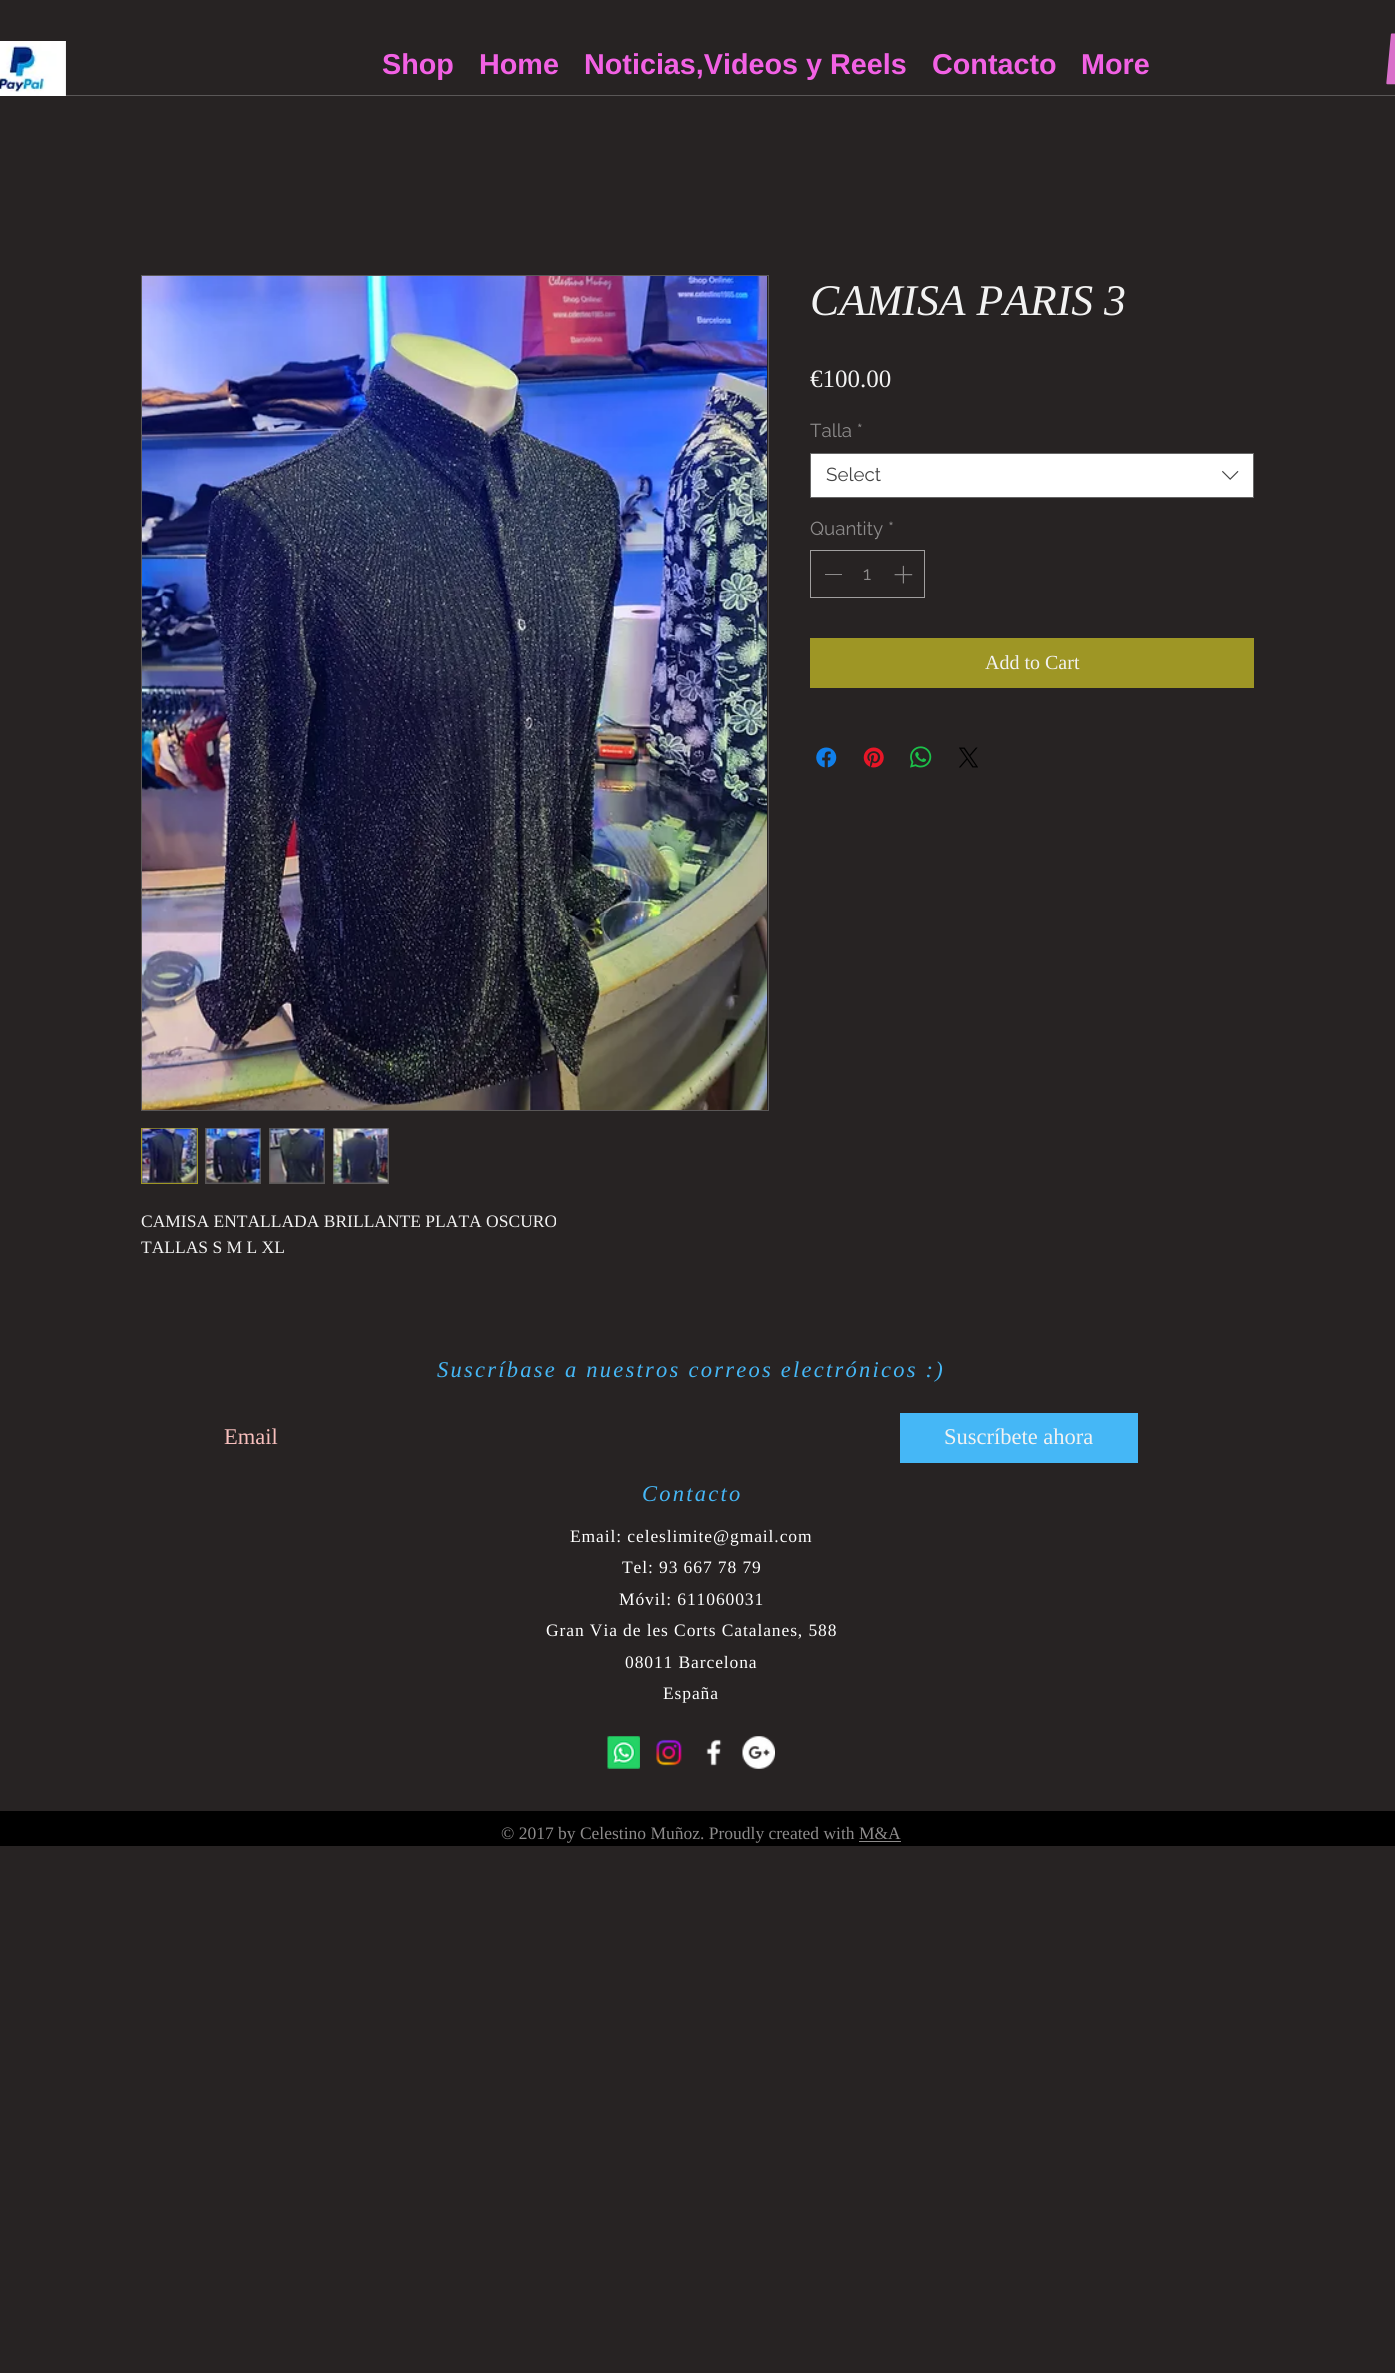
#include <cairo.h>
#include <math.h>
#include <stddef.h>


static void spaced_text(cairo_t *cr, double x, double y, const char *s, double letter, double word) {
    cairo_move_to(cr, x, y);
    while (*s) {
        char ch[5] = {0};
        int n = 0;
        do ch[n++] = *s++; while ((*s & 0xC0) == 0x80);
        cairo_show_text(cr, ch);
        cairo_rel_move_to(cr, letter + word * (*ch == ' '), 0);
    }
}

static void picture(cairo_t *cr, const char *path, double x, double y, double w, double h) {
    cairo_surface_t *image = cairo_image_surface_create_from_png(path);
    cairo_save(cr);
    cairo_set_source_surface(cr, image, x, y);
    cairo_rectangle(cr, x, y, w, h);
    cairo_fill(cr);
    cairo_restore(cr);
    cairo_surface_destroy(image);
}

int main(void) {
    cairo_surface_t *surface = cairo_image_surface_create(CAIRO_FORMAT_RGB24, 1395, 2373);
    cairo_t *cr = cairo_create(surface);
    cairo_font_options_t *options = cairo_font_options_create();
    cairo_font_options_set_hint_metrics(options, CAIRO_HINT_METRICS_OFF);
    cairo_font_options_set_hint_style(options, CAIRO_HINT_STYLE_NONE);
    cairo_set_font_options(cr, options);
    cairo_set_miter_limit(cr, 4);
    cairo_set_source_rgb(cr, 0.153, 0.137, 0.137);
    cairo_paint(cr);
    picture(cr, "img1.png", 0, 41, 66, 55);
    cairo_select_font_face(cr, "Liberation Sans", CAIRO_FONT_SLANT_NORMAL, CAIRO_FONT_WEIGHT_BOLD);
    cairo_set_font_size(cr, 28.75);
    cairo_set_source_rgb(cr, 0.949, 0.38, 0.894);
    cairo_move_to(cr, 382, 74);
    cairo_show_text(cr, "Shop");
    cairo_move_to(cr, 479, 74);
    cairo_show_text(cr, "Home");
    cairo_move_to(cr, 584, 74);
    cairo_show_text(cr, "Noticias,Videos y Reels");
    cairo_move_to(cr, 932, 74);
    cairo_show_text(cr, "Contacto");
    cairo_move_to(cr, 1081, 74);
    cairo_show_text(cr, "More");
    picture(cr, "img2.png", 1386, 33, 9, 52);
    cairo_set_source_rgb(cr, 0.353, 0.341, 0.341);
    cairo_rectangle(cr, 66, 95, 1329, 1);
    cairo_fill(cr);
    cairo_select_font_face(cr, "Liberation Serif", CAIRO_FONT_SLANT_ITALIC, CAIRO_FONT_WEIGHT_NORMAL);
    cairo_set_font_size(cr, 43.75);
    cairo_set_source_rgb(cr, 0.949, 0.949, 0.949);
    cairo_move_to(cr, 810, 315);
    cairo_show_text(cr, "CAMISA PARIS 3");
    cairo_select_font_face(cr, "Liberation Serif", CAIRO_FONT_SLANT_NORMAL, CAIRO_FONT_WEIGHT_NORMAL);
    cairo_set_font_size(cr, 25);
    cairo_move_to(cr, 810, 387);
    cairo_show_text(cr, "€100.00");
    cairo_select_font_face(cr, "Raleway", CAIRO_FONT_SLANT_NORMAL, CAIRO_FONT_WEIGHT_NORMAL);
    cairo_set_font_size(cr, 18.75);
    cairo_set_source_rgb(cr, 0.553, 0.545, 0.545);
    cairo_move_to(cr, 810, 437);
    cairo_show_text(cr, "Talla *");
    cairo_set_source_rgb(cr, 1, 1, 1);
    cairo_rectangle(cr, 810.5, 453.5, 443, 44);
    cairo_fill_preserve(cr);
    cairo_set_source_rgb(cr, 0.4, 0.4, 0.4);
    cairo_set_line_width(cr, 1);
    cairo_stroke(cr);
    cairo_set_source_rgb(cr, 0.267, 0.267, 0.267);
    cairo_move_to(cr, 826, 481);
    cairo_show_text(cr, "Select");
    picture(cr, "img3.png", 1222, 470, 17, 10);
    cairo_set_source_rgb(cr, 0.553, 0.545, 0.545);
    cairo_move_to(cr, 810, 535);
    cairo_show_text(cr, "Quantity *");
    cairo_rectangle(cr, 810.5, 550.5, 114, 47);
    cairo_set_source_rgb(cr, 0.631, 0.624, 0.624);
    cairo_stroke(cr);
    cairo_set_source_rgb(cr, 0.553, 0.545, 0.545);
    cairo_rectangle(cr, 825, 574, 17, 1);
    cairo_fill(cr);
    cairo_move_to(cr, 863, 580);
    cairo_show_text(cr, "1");
    picture(cr, "img4.png", 894, 565, 19, 19);
    cairo_set_source_rgb(cr, 0.62, 0.588, 0.145);
    cairo_rectangle(cr, 810, 638, 444, 50);
    cairo_fill(cr);
    cairo_select_font_face(cr, "Liberation Serif", CAIRO_FONT_SLANT_NORMAL, CAIRO_FONT_WEIGHT_NORMAL);
    cairo_set_font_size(cr, 20);
    cairo_set_source_rgb(cr, 0.949, 0.949, 0.949);
    cairo_move_to(cr, 985, 669);
    cairo_show_text(cr, "Add to Cart");
    picture(cr, "img5.png", 816, 747, 21, 21);
    picture(cr, "img6.png", 863, 747, 21, 21);
    picture(cr, "img7.png", 910, 746, 22, 22);
    picture(cr, "img8.png", 959, 747, 19, 21);
    cairo_rectangle(cr, 141.5, 275.5, 627, 835);
    cairo_set_source_rgb(cr, 0.353, 0.341, 0.341);
    cairo_stroke(cr);
    picture(cr, "img9.png", 142, 276, 625, 834);
    cairo_rectangle(cr, 141.5, 1128.5, 56, 55);
    cairo_fill_preserve(cr);
    cairo_set_source_rgb(cr, 0.62, 0.588, 0.145);
    cairo_stroke(cr);
    picture(cr, "img10.png", 142, 1128, 55, 55);
    cairo_set_source_rgb(cr, 0.353, 0.341, 0.341);
    cairo_rectangle(cr, 205, 1128, 56, 56);
    cairo_fill(cr);
    picture(cr, "img11.png", 206, 1128, 55, 55);
    cairo_rectangle(cr, 269, 1128, 56, 56);
    cairo_fill(cr);
    picture(cr, "img12.png", 269, 1128, 56, 55);
    cairo_rectangle(cr, 333, 1128, 56, 56);
    cairo_fill(cr);
    picture(cr, "img13.png", 333, 1128, 55, 55);
    cairo_set_font_size(cr, 17.5);
    cairo_set_source_rgb(cr, 0.949, 0.949, 0.949);
    cairo_move_to(cr, 141, 1227);
    cairo_show_text(cr, "CAMISA ENTALLADA BRILLANTE PLATA OSCURO");
    cairo_move_to(cr, 141, 1253);
    cairo_show_text(cr, "TALLAS S M L XL");
    cairo_select_font_face(cr, "Liberation Serif", CAIRO_FONT_SLANT_ITALIC, CAIRO_FONT_WEIGHT_NORMAL);
    cairo_set_font_size(cr, 22.5);
    cairo_set_source_rgb(cr, 0.271, 0.718, 0.961);
    spaced_text(cr, 437, 1377, "Suscríbase a nuestros correos electrónicos :)", 2.25, 0);
    cairo_select_font_face(cr, "Liberation Serif", CAIRO_FONT_SLANT_NORMAL, CAIRO_FONT_WEIGHT_NORMAL);
    cairo_set_source_rgb(cr, 0.969, 0.749, 0.741);
    cairo_move_to(cr, 224, 1444);
    cairo_show_text(cr, "Email");
    cairo_set_source_rgb(cr, 0.271, 0.718, 0.961);
    cairo_rectangle(cr, 900, 1413, 238, 50);
    cairo_fill(cr);
    cairo_set_source_rgb(cr, 0.949, 0.949, 0.949);
    cairo_move_to(cr, 944, 1444);
    cairo_show_text(cr, "Suscríbete ahora");
    cairo_select_font_face(cr, "Liberation Serif", CAIRO_FONT_SLANT_ITALIC, CAIRO_FONT_WEIGHT_NORMAL);
    cairo_set_source_rgb(cr, 0.271, 0.718, 0.961);
    spaced_text(cr, 642, 1501, "Contacto", 2.25, 0);
    cairo_select_font_face(cr, "Liberation Serif", CAIRO_FONT_SLANT_NORMAL, CAIRO_FONT_WEIGHT_NORMAL);
    cairo_set_font_size(cr, 17.5);
    cairo_set_source_rgb(cr, 1, 1, 1);
    spaced_text(cr, 570, 1542, "Email: celeslimite@gmail.com", 0.9, 0);
    spaced_text(cr, 622, 1573, "Tel: 93 667 78 79", 0.9, 0);
    spaced_text(cr, 619, 1605, "Móvil: 611060031", 0.9, 0);
    spaced_text(cr, 546, 1636, "Gran Via de les Corts Catalanes, 588", 0.9, 0);
    spaced_text(cr, 625, 1668, "08011 Barcelona", 0.9, 0);
    spaced_text(cr, 663, 1699, "España", 0.9, 0);
    picture(cr, "img14.png", 607, 1736, 33, 33);
    picture(cr, "img15.png", 656, 1739, 26, 27);
    picture(cr, "img16.png", 706, 1739, 16, 27);
    picture(cr, "img17.png", 742, 1736, 33, 33);
    cairo_set_source_rgb(cr, 0, 0, 0);
    cairo_rectangle(cr, 0, 1811, 1395, 35);
    cairo_fill(cr);
    cairo_set_source_rgb(cr, 0.553, 0.545, 0.545);
    cairo_move_to(cr, 501, 1839);
    cairo_show_text(cr, "© 2017 by Celestino Muñoz. Proudly created with M&A");
    cairo_rectangle(cr, 859, 1841, 42, 1);
    cairo_fill(cr);
    cairo_surface_write_to_png(surface, "page.png");
    cairo_font_options_destroy(options);
    cairo_destroy(cr);
    cairo_surface_destroy(surface);
    return 0;
}
